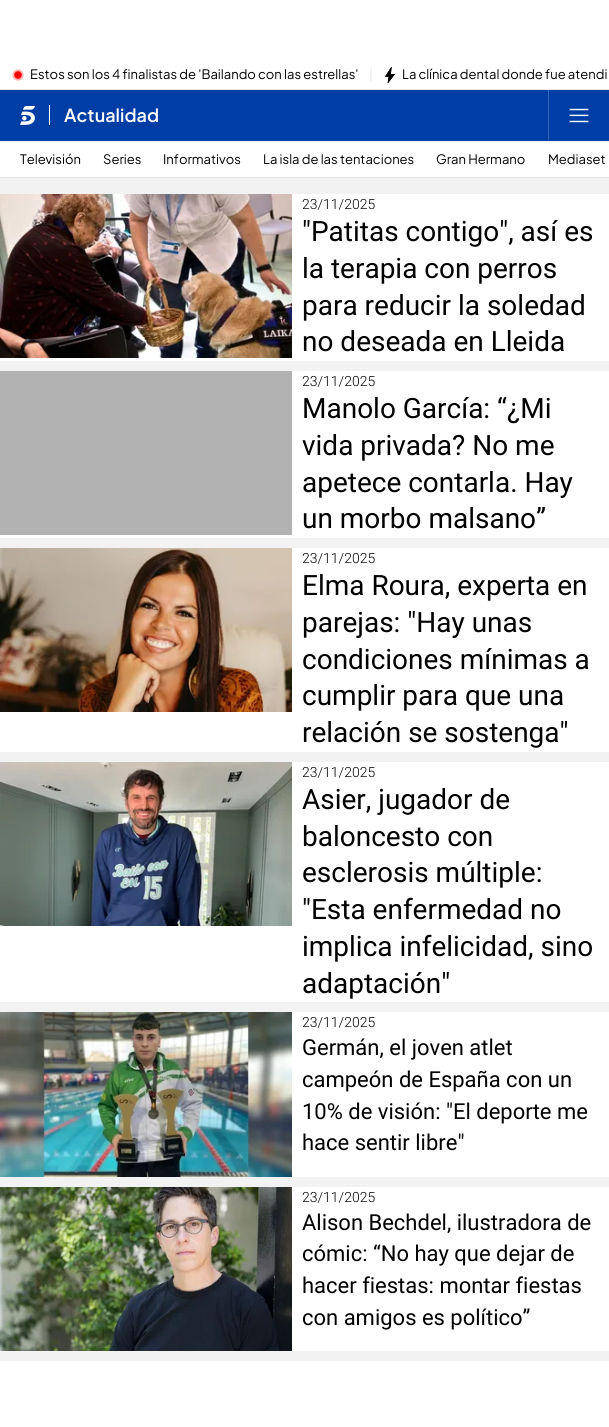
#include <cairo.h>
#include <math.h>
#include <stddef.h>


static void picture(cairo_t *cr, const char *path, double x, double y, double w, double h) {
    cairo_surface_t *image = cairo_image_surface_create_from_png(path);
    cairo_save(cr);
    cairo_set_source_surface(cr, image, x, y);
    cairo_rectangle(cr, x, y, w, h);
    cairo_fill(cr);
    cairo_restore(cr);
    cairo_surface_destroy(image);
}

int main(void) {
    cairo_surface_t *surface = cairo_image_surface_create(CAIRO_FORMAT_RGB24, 609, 1427);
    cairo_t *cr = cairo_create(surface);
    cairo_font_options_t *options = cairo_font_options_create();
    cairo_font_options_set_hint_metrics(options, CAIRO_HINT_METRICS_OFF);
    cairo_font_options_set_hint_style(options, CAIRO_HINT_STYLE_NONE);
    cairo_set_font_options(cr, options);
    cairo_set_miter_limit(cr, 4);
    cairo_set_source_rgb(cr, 0.949, 0.949, 0.949);
    cairo_paint(cr);
    cairo_set_source_rgb(cr, 1, 1, 1);
    cairo_rectangle(cr, 0, 0, 609, 89);
    cairo_fill(cr);
    cairo_set_source_rgb(cr, 0.902, 0.902, 0.902);
    cairo_rectangle(cr, 0, 89, 609, 1);
    cairo_fill(cr);
    picture(cr, "img1.png", 12, 69, 12, 12);
    cairo_select_font_face(cr, "Plus Jakarta Sans", CAIRO_FONT_SLANT_NORMAL, CAIRO_FONT_WEIGHT_NORMAL);
    cairo_set_font_size(cr, 13);
    cairo_set_source_rgb(cr, 0, 0, 0);
    cairo_move_to(cr, 30, 79);
    cairo_show_text(cr, "Estos son los 4 finalistas de 'Bailando con las estrellas'");
    cairo_set_source_rgb(cr, 0.898, 0.898, 0.898);
    cairo_move_to(cr, 369, 79);
    cairo_show_text(cr, "|");
    picture(cr, "img2.png", 385, 67, 10, 16);
    cairo_set_source_rgb(cr, 0, 0, 0);
    cairo_move_to(cr, 402, 79);
    cairo_show_text(cr, "La clínica dental donde fue atendi");
    cairo_set_source_rgb(cr, 0, 0.239, 0.647);
    cairo_rectangle(cr, 0, 90, 609, 51);
    cairo_fill(cr);
    picture(cr, "img3.png", 20, 106, 15, 19);
    cairo_set_source_rgb(cr, 1, 1, 1);
    cairo_rectangle(cr, 49, 105, 1, 20);
    cairo_fill(cr);
    cairo_select_font_face(cr, "Plus Jakarta Sans SemiBold", CAIRO_FONT_SLANT_NORMAL, CAIRO_FONT_WEIGHT_NORMAL);
    cairo_set_font_size(cr, 18);
    cairo_move_to(cr, 64, 122);
    cairo_show_text(cr, "Actualidad");
    cairo_set_source_rgb(cr, 0.2, 0.392, 0.718);
    cairo_rectangle(cr, 548, 90, 1, 50);
    cairo_fill(cr);
    picture(cr, "img4.png", 569, 108, 20, 15);
    cairo_set_source_rgb(cr, 1, 1, 1);
    cairo_rectangle(cr, 0, 141, 609, 36);
    cairo_fill(cr);
    cairo_set_source_rgb(cr, 0.902, 0.902, 0.902);
    cairo_rectangle(cr, 0, 177, 609, 1);
    cairo_fill(cr);
    cairo_select_font_face(cr, "Plus Jakarta Sans", CAIRO_FONT_SLANT_NORMAL, CAIRO_FONT_WEIGHT_NORMAL);
    cairo_set_font_size(cr, 13);
    cairo_set_source_rgb(cr, 0, 0, 0);
    cairo_move_to(cr, 20, 164);
    cairo_show_text(cr, "Televisión");
    cairo_move_to(cr, 103, 164);
    cairo_show_text(cr, "Series");
    cairo_move_to(cr, 163, 164);
    cairo_show_text(cr, "Informativos");
    cairo_move_to(cr, 263, 164);
    cairo_show_text(cr, "La isla de las tentaciones");
    cairo_move_to(cr, 436, 164);
    cairo_show_text(cr, "Gran Hermano");
    cairo_move_to(cr, 548, 164);
    cairo_show_text(cr, "Mediaset");
    cairo_set_source_rgb(cr, 1, 1, 1);
    cairo_rectangle(cr, 0, 194, 609, 167);
    cairo_fill(cr);
    picture(cr, "img5.png", 0, 194, 292, 164);
    cairo_select_font_face(cr, "Roboto Light", CAIRO_FONT_SLANT_NORMAL, CAIRO_FONT_WEIGHT_NORMAL);
    cairo_set_font_size(cr, 14);
    cairo_set_source_rgb(cr, 0, 0, 0);
    cairo_move_to(cr, 302, 209);
    cairo_show_text(cr, "23/11/2025");
    cairo_select_font_face(cr, "Roboto", CAIRO_FONT_SLANT_NORMAL, CAIRO_FONT_WEIGHT_NORMAL);
    cairo_set_font_size(cr, 28);
    cairo_move_to(cr, 302, 241);
    cairo_show_text(cr, "\"Patitas contigo\", así es");
    cairo_move_to(cr, 302, 278);
    cairo_show_text(cr, "la terapia con perros");
    cairo_move_to(cr, 302, 315);
    cairo_show_text(cr, "para reducir la soledad");
    cairo_move_to(cr, 302, 351);
    cairo_show_text(cr, "no deseada en Lleida");
    cairo_set_source_rgb(cr, 1, 1, 1);
    cairo_rectangle(cr, 0, 371, 609, 167);
    cairo_fill(cr);
    cairo_set_source_rgb(cr, 0.698, 0.698, 0.698);
    cairo_rectangle(cr, 0, 371, 292, 164);
    cairo_fill(cr);
    cairo_select_font_face(cr, "Roboto Light", CAIRO_FONT_SLANT_NORMAL, CAIRO_FONT_WEIGHT_NORMAL);
    cairo_set_font_size(cr, 14);
    cairo_set_source_rgb(cr, 0, 0, 0);
    cairo_move_to(cr, 302, 386);
    cairo_show_text(cr, "23/11/2025");
    cairo_select_font_face(cr, "Roboto", CAIRO_FONT_SLANT_NORMAL, CAIRO_FONT_WEIGHT_NORMAL);
    cairo_set_font_size(cr, 28);
    cairo_move_to(cr, 302, 418);
    cairo_show_text(cr, "Manolo García: “¿Mi");
    cairo_move_to(cr, 302, 455);
    cairo_show_text(cr, "vida privada? No me");
    cairo_move_to(cr, 302, 492);
    cairo_show_text(cr, "apetece contarla. Hay");
    cairo_move_to(cr, 302, 528);
    cairo_show_text(cr, "un morbo malsano”");
    cairo_set_source_rgb(cr, 1, 1, 1);
    cairo_rectangle(cr, 0, 548, 609, 204);
    cairo_fill(cr);
    picture(cr, "img6.png", 0, 548, 292, 164);
    cairo_select_font_face(cr, "Roboto Light", CAIRO_FONT_SLANT_NORMAL, CAIRO_FONT_WEIGHT_NORMAL);
    cairo_set_font_size(cr, 14);
    cairo_set_source_rgb(cr, 0, 0, 0);
    cairo_move_to(cr, 302, 563);
    cairo_show_text(cr, "23/11/2025");
    cairo_select_font_face(cr, "Roboto", CAIRO_FONT_SLANT_NORMAL, CAIRO_FONT_WEIGHT_NORMAL);
    cairo_set_font_size(cr, 28);
    cairo_move_to(cr, 302, 595);
    cairo_show_text(cr, "Elma Roura, experta en");
    cairo_move_to(cr, 302, 632);
    cairo_show_text(cr, "parejas: \"Hay unas");
    cairo_move_to(cr, 302, 669);
    cairo_show_text(cr, "condiciones mínimas a");
    cairo_move_to(cr, 302, 705);
    cairo_show_text(cr, "cumplir para que una");
    cairo_move_to(cr, 302, 742);
    cairo_show_text(cr, "relación se sostenga\"");
    cairo_set_source_rgb(cr, 1, 1, 1);
    cairo_rectangle(cr, 0, 762, 609, 240);
    cairo_fill(cr);
    picture(cr, "img7.png", 0, 762, 292, 164);
    cairo_select_font_face(cr, "Roboto Light", CAIRO_FONT_SLANT_NORMAL, CAIRO_FONT_WEIGHT_NORMAL);
    cairo_set_font_size(cr, 14);
    cairo_set_source_rgb(cr, 0, 0, 0);
    cairo_move_to(cr, 302, 777);
    cairo_show_text(cr, "23/11/2025");
    cairo_select_font_face(cr, "Roboto", CAIRO_FONT_SLANT_NORMAL, CAIRO_FONT_WEIGHT_NORMAL);
    cairo_set_font_size(cr, 28);
    cairo_move_to(cr, 302, 809);
    cairo_show_text(cr, "Asier, jugador de");
    cairo_move_to(cr, 302, 846);
    cairo_show_text(cr, "baloncesto con");
    cairo_move_to(cr, 302, 882);
    cairo_show_text(cr, "esclerosis múltiple:");
    cairo_move_to(cr, 302, 919);
    cairo_show_text(cr, "\"Esta enfermedad no");
    cairo_move_to(cr, 302, 956);
    cairo_show_text(cr, "implica infelicidad, sino");
    cairo_move_to(cr, 302, 993);
    cairo_show_text(cr, "adaptación\"");
    cairo_set_source_rgb(cr, 1, 1, 1);
    cairo_rectangle(cr, 292, 1012, 317, 165);
    cairo_fill(cr);
    picture(cr, "img8.png", 0, 1012, 292, 165);
    cairo_select_font_face(cr, "Roboto Light", CAIRO_FONT_SLANT_NORMAL, CAIRO_FONT_WEIGHT_NORMAL);
    cairo_set_font_size(cr, 14);
    cairo_set_source_rgb(cr, 0, 0, 0);
    cairo_move_to(cr, 302, 1027);
    cairo_show_text(cr, "23/11/2025");
    cairo_select_font_face(cr, "Roboto", CAIRO_FONT_SLANT_NORMAL, CAIRO_FONT_WEIGHT_NORMAL);
    cairo_set_font_size(cr, 22);
    cairo_move_to(cr, 302, 1055);
    cairo_show_text(cr, "Germán, el joven atlet");
    cairo_move_to(cr, 302, 1087);
    cairo_show_text(cr, "campeón de España con un");
    cairo_move_to(cr, 302, 1119);
    cairo_show_text(cr, "10% de visión: \"El deporte me");
    cairo_move_to(cr, 302, 1150);
    cairo_show_text(cr, "hace sentir libre\"");
    cairo_set_source_rgb(cr, 1, 1, 1);
    cairo_rectangle(cr, 292, 1187, 317, 164);
    cairo_fill(cr);
    picture(cr, "img9.png", 0, 1187, 292, 164);
    cairo_select_font_face(cr, "Roboto Light", CAIRO_FONT_SLANT_NORMAL, CAIRO_FONT_WEIGHT_NORMAL);
    cairo_set_font_size(cr, 14);
    cairo_set_source_rgb(cr, 0, 0, 0);
    cairo_move_to(cr, 302, 1202);
    cairo_show_text(cr, "23/11/2025");
    cairo_select_font_face(cr, "Roboto", CAIRO_FONT_SLANT_NORMAL, CAIRO_FONT_WEIGHT_NORMAL);
    cairo_set_font_size(cr, 22);
    cairo_move_to(cr, 302, 1230);
    cairo_show_text(cr, "Alison Bechdel, ilustradora de");
    cairo_move_to(cr, 302, 1261);
    cairo_show_text(cr, "cómic: “No hay que dejar de");
    cairo_move_to(cr, 302, 1293);
    cairo_show_text(cr, "hacer fiestas: montar fiestas");
    cairo_move_to(cr, 302, 1325);
    cairo_show_text(cr, "con amigos es político”");
    cairo_set_source_rgb(cr, 1, 1, 1);
    cairo_rectangle(cr, 0, 1361, 609, 66);
    cairo_fill(cr);
    cairo_surface_write_to_png(surface, "page.png");
    cairo_font_options_destroy(options);
    cairo_destroy(cr);
    cairo_surface_destroy(surface);
    return 0;
}
